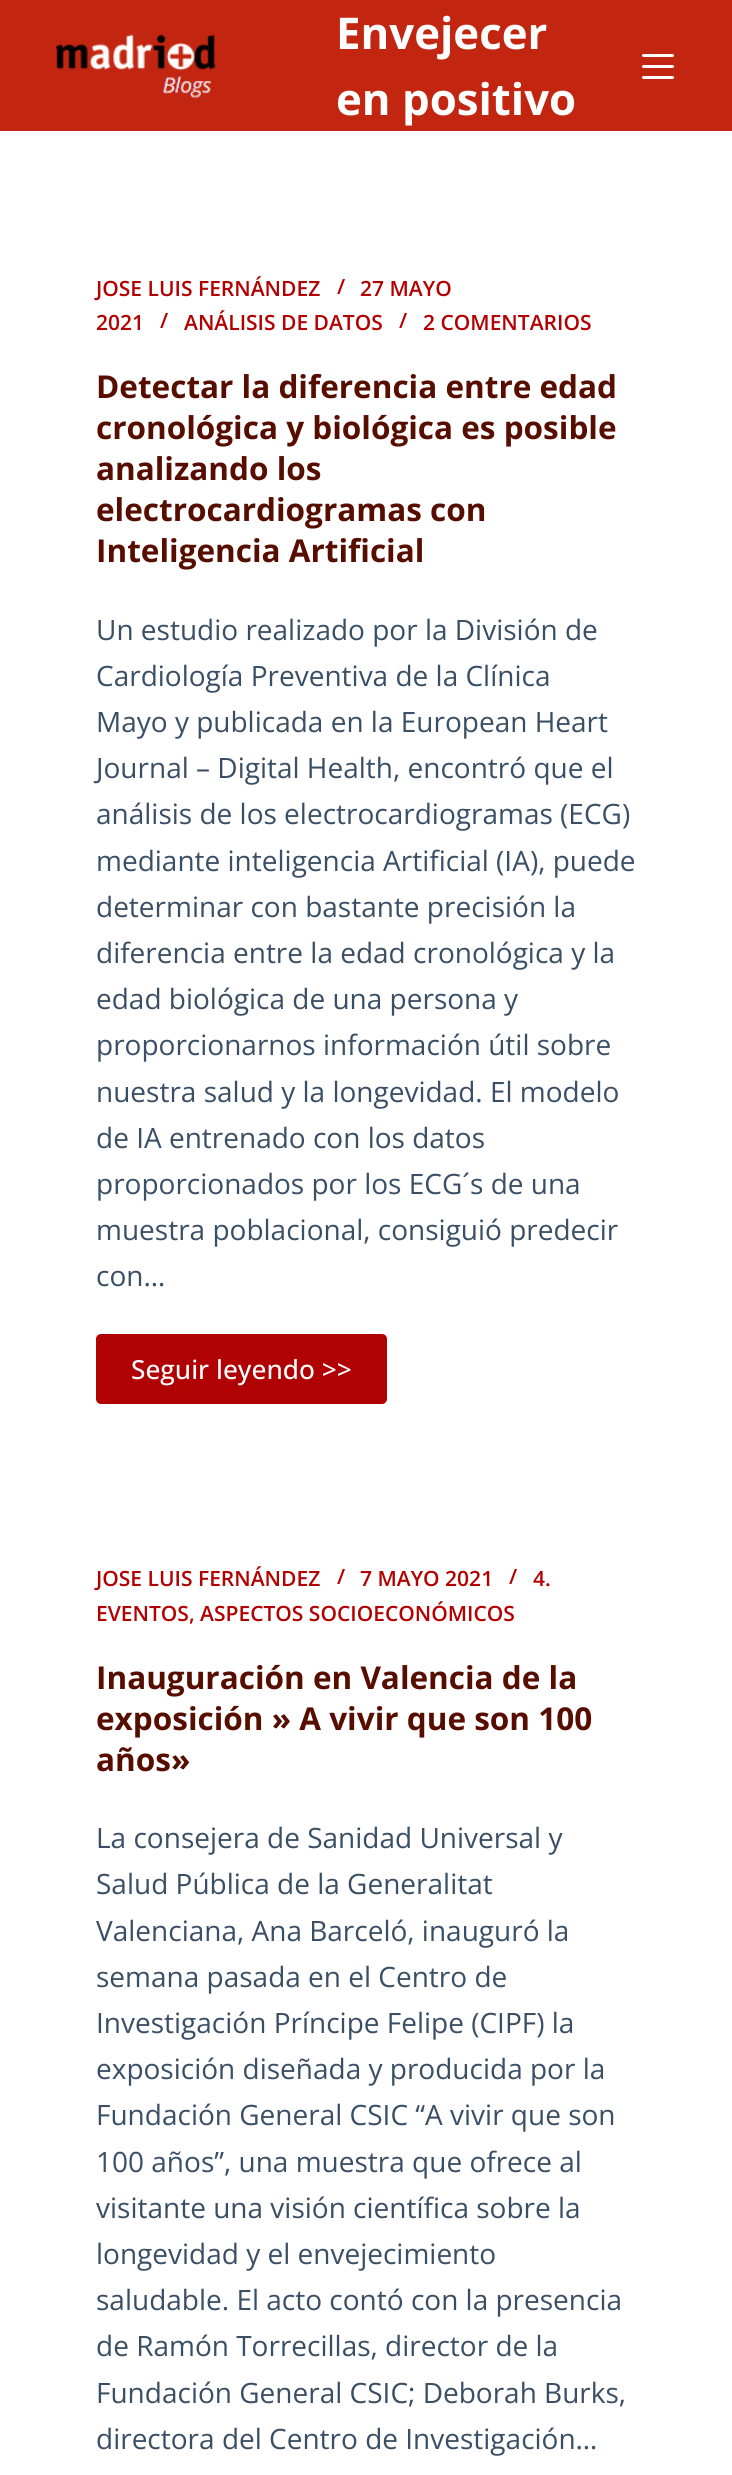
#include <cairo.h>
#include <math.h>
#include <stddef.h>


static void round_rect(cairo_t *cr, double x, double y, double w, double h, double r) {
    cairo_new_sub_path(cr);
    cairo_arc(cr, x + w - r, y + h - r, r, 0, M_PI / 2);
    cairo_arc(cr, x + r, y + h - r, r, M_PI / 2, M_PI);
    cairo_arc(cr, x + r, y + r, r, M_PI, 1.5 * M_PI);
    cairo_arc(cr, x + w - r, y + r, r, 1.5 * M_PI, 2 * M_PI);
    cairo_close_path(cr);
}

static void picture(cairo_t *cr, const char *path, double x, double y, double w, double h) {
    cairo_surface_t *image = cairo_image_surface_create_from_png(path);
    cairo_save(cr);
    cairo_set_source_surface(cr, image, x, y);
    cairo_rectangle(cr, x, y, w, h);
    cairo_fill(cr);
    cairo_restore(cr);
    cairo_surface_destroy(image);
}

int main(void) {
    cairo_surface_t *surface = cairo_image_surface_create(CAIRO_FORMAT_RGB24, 732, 2475);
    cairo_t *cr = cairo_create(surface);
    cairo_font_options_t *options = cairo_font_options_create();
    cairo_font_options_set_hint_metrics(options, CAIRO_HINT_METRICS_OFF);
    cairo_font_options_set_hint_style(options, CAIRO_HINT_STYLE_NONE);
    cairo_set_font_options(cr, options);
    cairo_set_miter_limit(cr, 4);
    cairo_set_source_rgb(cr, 1, 1, 1);
    cairo_paint(cr);
    cairo_set_source_rgb(cr, 0.761, 0.149, 0.067);
    cairo_rectangle(cr, 0, 0, 732, 131);
    cairo_fill(cr);
    picture(cr, "img1.png", 55, 34, 161, 64);
    cairo_select_font_face(cr, "Open Sans", CAIRO_FONT_SLANT_NORMAL, CAIRO_FONT_WEIGHT_BOLD);
    cairo_set_font_size(cr, 43.75);
    cairo_set_source_rgb(cr, 1, 1, 1);
    cairo_move_to(cr, 336, 49);
    cairo_show_text(cr, "Envejecer");
    cairo_move_to(cr, 336, 115);
    cairo_show_text(cr, "en positivo");
    round_rect(cr, 642, 54, 32, 3, 1.5);
    cairo_fill(cr);
    round_rect(cr, 642, 65, 32, 3, 1.5);
    cairo_fill(cr);
    round_rect(cr, 642, 76, 32, 3, 1.5);
    cairo_fill(cr);
    cairo_select_font_face(cr, "Open Sans SemiBold", CAIRO_FONT_SLANT_NORMAL, CAIRO_FONT_WEIGHT_NORMAL);
    cairo_set_font_size(cr, 21);
    cairo_set_source_rgb(cr, 0.702, 0, 0);
    cairo_move_to(cr, 96, 296);
    cairo_show_text(cr, "JOSE LUIS FERNÁNDEZ");
    cairo_move_to(cr, 337, 294);
    cairo_show_text(cr, "/");
    cairo_move_to(cr, 360, 296);
    cairo_show_text(cr, "27 MAYO");
    cairo_move_to(cr, 96, 330);
    cairo_show_text(cr, "2021");
    cairo_move_to(cr, 160, 328);
    cairo_show_text(cr, "/");
    cairo_move_to(cr, 184, 330);
    cairo_show_text(cr, "ANÁLISIS DE DATOS");
    cairo_move_to(cr, 399, 328);
    cairo_show_text(cr, "/");
    cairo_move_to(cr, 423, 330);
    cairo_show_text(cr, "2 COMENTARIOS");
    cairo_select_font_face(cr, "Open Sans", CAIRO_FONT_SLANT_NORMAL, CAIRO_FONT_WEIGHT_BOLD);
    cairo_set_font_size(cr, 31.5);
    cairo_set_source_rgb(cr, 0.341, 0.055, 0);
    cairo_move_to(cr, 96, 398);
    cairo_show_text(cr, "Detectar la diferencia entre edad");
    cairo_move_to(cr, 96, 439);
    cairo_show_text(cr, "cronológica y biológica es posible");
    cairo_move_to(cr, 96, 480);
    cairo_show_text(cr, "analizando los");
    cairo_move_to(cr, 96, 521);
    cairo_show_text(cr, "electrocardiogramas con");
    cairo_move_to(cr, 96, 562);
    cairo_show_text(cr, "Inteligencia Artificial");
    cairo_select_font_face(cr, "Open Sans", CAIRO_FONT_SLANT_NORMAL, CAIRO_FONT_WEIGHT_NORMAL);
    cairo_set_font_size(cr, 28);
    cairo_set_source_rgb(cr, 0.227, 0.31, 0.4);
    cairo_move_to(cr, 96, 640);
    cairo_show_text(cr, "Un estudio realizado por la División de");
    cairo_move_to(cr, 96, 686);
    cairo_show_text(cr, "Cardiología Preventiva de la Clínica");
    cairo_move_to(cr, 96, 732);
    cairo_show_text(cr, "Mayo y publicada en la European Heart");
    cairo_move_to(cr, 96, 778);
    cairo_show_text(cr, "Journal – Digital Health, encontró que el");
    cairo_move_to(cr, 96, 824);
    cairo_show_text(cr, "análisis de los electrocardiogramas (ECG)");
    cairo_move_to(cr, 96, 871);
    cairo_show_text(cr, "mediante inteligencia Artificial (IA), puede");
    cairo_move_to(cr, 96, 917);
    cairo_show_text(cr, "determinar con bastante precisión la");
    cairo_move_to(cr, 96, 963);
    cairo_show_text(cr, "diferencia entre la edad cronológica y la");
    cairo_move_to(cr, 96, 1009);
    cairo_show_text(cr, "edad biológica de una persona y");
    cairo_move_to(cr, 96, 1055);
    cairo_show_text(cr, "proporcionarnos información útil sobre");
    cairo_move_to(cr, 96, 1102);
    cairo_show_text(cr, "nuestra salud y la longevidad. El modelo");
    cairo_move_to(cr, 96, 1148);
    cairo_show_text(cr, "de IA entrenado con los datos");
    cairo_move_to(cr, 96, 1194);
    cairo_show_text(cr, "proporcionados por los ECG´s de una");
    cairo_move_to(cr, 96, 1240);
    cairo_show_text(cr, "muestra poblacional, consiguió predecir");
    cairo_move_to(cr, 96, 1286);
    cairo_show_text(cr, "con…");
    cairo_set_source_rgb(cr, 0.69, 0.004, 0.012);
    round_rect(cr, 96, 1334, 291, 70, 5);
    cairo_fill(cr);
    cairo_select_font_face(cr, "Open Sans Medium", CAIRO_FONT_SLANT_NORMAL, CAIRO_FONT_WEIGHT_NORMAL);
    cairo_set_font_size(cr, 26.25);
    cairo_set_source_rgb(cr, 1, 1, 1);
    cairo_move_to(cr, 131, 1379);
    cairo_show_text(cr, "Seguir leyendo >>");
    cairo_select_font_face(cr, "Open Sans SemiBold", CAIRO_FONT_SLANT_NORMAL, CAIRO_FONT_WEIGHT_NORMAL);
    cairo_set_font_size(cr, 21);
    cairo_set_source_rgb(cr, 0.702, 0, 0);
    cairo_move_to(cr, 96, 1586);
    cairo_show_text(cr, "JOSE LUIS FERNÁNDEZ");
    cairo_move_to(cr, 337, 1584);
    cairo_show_text(cr, "/");
    cairo_move_to(cr, 360, 1586);
    cairo_show_text(cr, "7 MAYO 2021");
    cairo_move_to(cr, 509, 1584);
    cairo_show_text(cr, "/");
    cairo_move_to(cr, 533, 1586);
    cairo_show_text(cr, "4.");
    cairo_move_to(cr, 96, 1621);
    cairo_show_text(cr, "EVENTOS, ASPECTOS SOCIOECONÓMICOS");
    cairo_select_font_face(cr, "Open Sans", CAIRO_FONT_SLANT_NORMAL, CAIRO_FONT_WEIGHT_BOLD);
    cairo_set_font_size(cr, 31.5);
    cairo_set_source_rgb(cr, 0.341, 0.055, 0);
    cairo_move_to(cr, 96, 1689);
    cairo_show_text(cr, "Inauguración en Valencia de la");
    cairo_move_to(cr, 96, 1730);
    cairo_show_text(cr, "exposición » A vivir que son 100");
    cairo_move_to(cr, 96, 1771);
    cairo_show_text(cr, "años»");
    cairo_select_font_face(cr, "Open Sans", CAIRO_FONT_SLANT_NORMAL, CAIRO_FONT_WEIGHT_NORMAL);
    cairo_set_font_size(cr, 28);
    cairo_set_source_rgb(cr, 0.227, 0.31, 0.4);
    cairo_move_to(cr, 96, 1848);
    cairo_show_text(cr, "La consejera de Sanidad Universal y");
    cairo_move_to(cr, 96, 1894);
    cairo_show_text(cr, "Salud Pública de la Generalitat");
    cairo_move_to(cr, 96, 1941);
    cairo_show_text(cr, "Valenciana, Ana Barceló, inauguró la");
    cairo_move_to(cr, 96, 1987);
    cairo_show_text(cr, "semana pasada en el Centro de");
    cairo_move_to(cr, 96, 2033);
    cairo_show_text(cr, "Investigación Príncipe Felipe (CIPF) la");
    cairo_move_to(cr, 96, 2079);
    cairo_show_text(cr, "exposición diseñada y producida por la");
    cairo_move_to(cr, 96, 2125);
    cairo_show_text(cr, "Fundación General CSIC “A vivir que son");
    cairo_move_to(cr, 96, 2172);
    cairo_show_text(cr, "100 años”, una muestra que ofrece al");
    cairo_move_to(cr, 96, 2218);
    cairo_show_text(cr, "visitante una visión científica sobre la");
    cairo_move_to(cr, 96, 2264);
    cairo_show_text(cr, "longevidad y el envejecimiento");
    cairo_move_to(cr, 96, 2310);
    cairo_show_text(cr, "saludable. El acto contó con la presencia");
    cairo_move_to(cr, 96, 2356);
    cairo_show_text(cr, "de Ramón Torrecillas, director de la");
    cairo_move_to(cr, 96, 2403);
    cairo_show_text(cr, "Fundación General CSIC; Deborah Burks,");
    cairo_move_to(cr, 96, 2449);
    cairo_show_text(cr, "directora del Centro de Investigación…");
    cairo_surface_write_to_png(surface, "page.png");
    cairo_font_options_destroy(options);
    cairo_destroy(cr);
    cairo_surface_destroy(surface);
    return 0;
}
